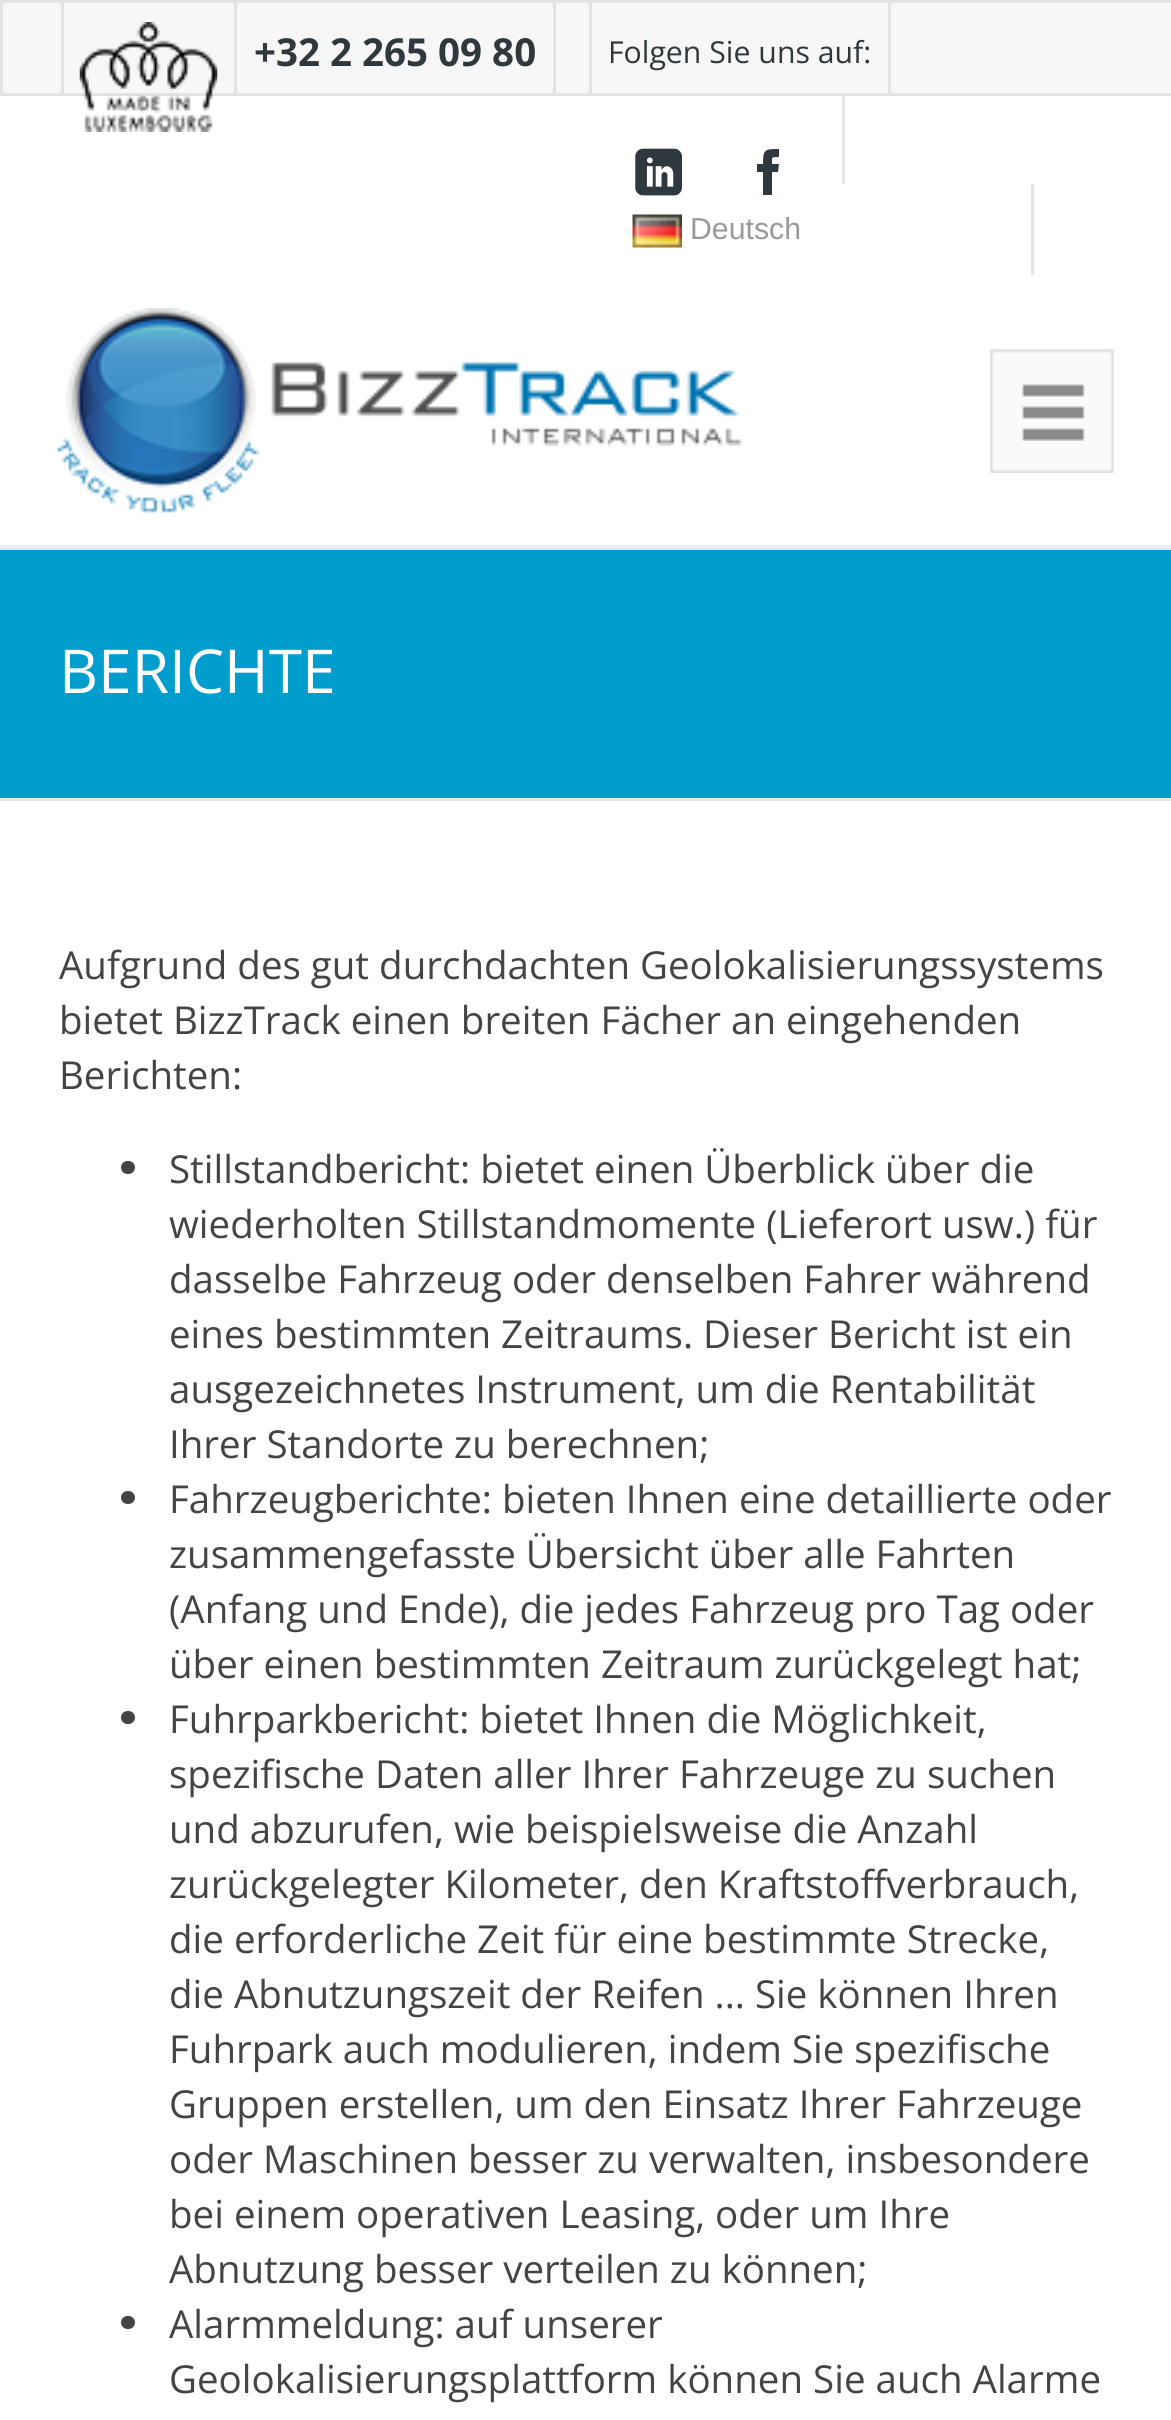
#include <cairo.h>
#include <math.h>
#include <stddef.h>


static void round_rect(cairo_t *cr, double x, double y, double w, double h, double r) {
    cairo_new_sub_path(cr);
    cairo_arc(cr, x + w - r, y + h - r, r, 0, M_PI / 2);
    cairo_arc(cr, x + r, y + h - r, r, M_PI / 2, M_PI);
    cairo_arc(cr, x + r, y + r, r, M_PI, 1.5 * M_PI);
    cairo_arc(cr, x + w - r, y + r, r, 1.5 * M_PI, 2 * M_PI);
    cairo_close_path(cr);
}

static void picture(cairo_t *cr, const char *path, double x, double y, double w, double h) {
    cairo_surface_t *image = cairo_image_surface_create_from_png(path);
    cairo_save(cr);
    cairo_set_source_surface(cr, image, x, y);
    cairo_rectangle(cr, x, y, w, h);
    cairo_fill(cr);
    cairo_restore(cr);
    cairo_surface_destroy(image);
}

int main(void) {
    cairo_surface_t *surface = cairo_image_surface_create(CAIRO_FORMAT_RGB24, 1171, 2420);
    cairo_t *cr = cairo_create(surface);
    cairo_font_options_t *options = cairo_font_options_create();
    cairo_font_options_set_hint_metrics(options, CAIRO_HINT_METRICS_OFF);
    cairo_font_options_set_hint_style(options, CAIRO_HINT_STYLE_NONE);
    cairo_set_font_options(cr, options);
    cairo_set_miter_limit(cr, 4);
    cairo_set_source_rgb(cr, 1, 1, 1);
    cairo_paint(cr);
    cairo_set_source_rgb(cr, 0.965, 0.965, 0.965);
    cairo_rectangle(cr, 1.5, 1.5, 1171, 93);
    cairo_fill_preserve(cr);
    cairo_set_source_rgb(cr, 0.886, 0.89, 0.886);
    cairo_set_line_width(cr, 3);
    cairo_stroke(cr);
    cairo_rectangle(cr, 234, 3, 3, 91);
    cairo_fill(cr);
    cairo_rectangle(cr, 61, 3, 3, 91);
    cairo_fill(cr);
    picture(cr, "img1.png", 79, 22, 139, 110);
    cairo_rectangle(cr, 553, 3, 3, 91);
    cairo_fill(cr);
    cairo_select_font_face(cr, "Open Sans", CAIRO_FONT_SLANT_NORMAL, CAIRO_FONT_WEIGHT_BOLD);
    cairo_set_font_size(cr, 38.5);
    cairo_set_source_rgb(cr, 0.184, 0.22, 0.239);
    cairo_move_to(cr, 254, 66);
    cairo_show_text(cr, "+32 2 265 09 80");
    cairo_set_source_rgb(cr, 0.886, 0.89, 0.886);
    cairo_rectangle(cr, 888, 3, 3, 91);
    cairo_fill(cr);
    cairo_rectangle(cr, 589, 3, 3, 91);
    cairo_fill(cr);
    cairo_select_font_face(cr, "Open Sans", CAIRO_FONT_SLANT_NORMAL, CAIRO_FONT_WEIGHT_NORMAL);
    cairo_set_font_size(cr, 30.25);
    cairo_set_source_rgb(cr, 0.184, 0.22, 0.239);
    cairo_move_to(cr, 608, 63);
    cairo_show_text(cr, "Folgen Sie uns auf:");
    cairo_set_source_rgb(cr, 0.886, 0.89, 0.886);
    cairo_rectangle(cr, 842, 94, 3, 90);
    cairo_fill(cr);
    picture(cr, "img2.png", 635, 148, 47, 48);
    cairo_set_source_rgb(cr, 0.184, 0.22, 0.239);
    cairo_new_path(cr);
    cairo_move_to(cr, 772, 195);
    cairo_line_to(cr, 772, 172);
    cairo_line_to(cr, 778, 172);
    cairo_line_to(cr, 779, 164);
    cairo_line_to(cr, 772, 164);
    cairo_curve_to(cr, 772, 157, 771, 157, 779, 157);
    cairo_line_to(cr, 779, 149);
    cairo_curve_to(cr, 765, 149, 763, 149, 763, 164);
    cairo_line_to(cr, 757, 164);
    cairo_line_to(cr, 757, 172);
    cairo_line_to(cr, 763, 172);
    cairo_line_to(cr, 763, 195);
    cairo_close_path(cr);
    cairo_fill(cr);
    cairo_set_source_rgb(cr, 0.886, 0.89, 0.886);
    cairo_rectangle(cr, 1031, 184, 3, 91);
    cairo_fill(cr);
    picture(cr, "img3.png", 632, 214, 50, 34);
    cairo_select_font_face(cr, "Liberation Sans", CAIRO_FONT_SLANT_NORMAL, CAIRO_FONT_WEIGHT_NORMAL);
    cairo_set_source_rgb(cr, 0.6, 0.6, 0.6);
    cairo_move_to(cr, 690, 239);
    cairo_show_text(cr, "Deutsch");
    cairo_set_source_rgb(cr, 0.937, 0.937, 0.937);
    cairo_rectangle(cr, 0, 545, 1171, 3);
    cairo_fill(cr);
    picture(cr, "img4.png", 57, 308, 686, 205);
    picture(cr, "img5.png", 990, 349, 124, 124);
    cairo_set_source_rgb(cr, 0, 0.616, 0.804);
    cairo_rectangle(cr, 0, 550, 1171, 248);
    cairo_fill(cr);
    cairo_set_source_rgb(cr, 0.906, 0.906, 0.906);
    cairo_rectangle(cr, 0, 548, 1171, 2);
    cairo_fill(cr);
    cairo_rectangle(cr, 0, 798, 1171, 3);
    cairo_fill(cr);
    cairo_select_font_face(cr, "Open Sans", CAIRO_FONT_SLANT_NORMAL, CAIRO_FONT_WEIGHT_NORMAL);
    cairo_set_font_size(cr, 60.5);
    cairo_set_source_rgb(cr, 1, 1, 1);
    cairo_move_to(cr, 59, 693);
    cairo_show_text(cr, "BERICHTE");
    cairo_set_font_size(cr, 38.5);
    cairo_set_source_rgb(cr, 0.267, 0.267, 0.267);
    cairo_move_to(cr, 59, 979);
    cairo_show_text(cr, "Aufgrund des gut durchdachten Geolokalisierungssystems");
    cairo_move_to(cr, 59, 1034);
    cairo_show_text(cr, "bietet BizzTrack einen breiten Fächer an eingehenden");
    cairo_move_to(cr, 59, 1089);
    cairo_show_text(cr, "Berichten:");
    round_rect(cr, 121, 1161, 14, 13, 6.5);
    cairo_fill(cr);
    cairo_move_to(cr, 169, 1183);
    cairo_show_text(cr, "Stillstandbericht: bietet einen Überblick über die");
    cairo_move_to(cr, 169, 1238);
    cairo_show_text(cr, "wiederholten Stillstandmomente (Lieferort usw.) für");
    cairo_move_to(cr, 169, 1293);
    cairo_show_text(cr, "dasselbe Fahrzeug oder denselben Fahrer während");
    cairo_move_to(cr, 169, 1348);
    cairo_show_text(cr, "eines bestimmten Zeitraums. Dieser Bericht ist ein");
    cairo_move_to(cr, 169, 1403);
    cairo_show_text(cr, "ausgezeichnetes Instrument, um die Rentabilität");
    cairo_move_to(cr, 169, 1458);
    cairo_show_text(cr, "Ihrer Standorte zu berechnen;");
    round_rect(cr, 121, 1491, 14, 13, 6.5);
    cairo_fill(cr);
    cairo_move_to(cr, 169, 1513);
    cairo_show_text(cr, "Fahrzeugberichte: bieten Ihnen eine detaillierte oder");
    cairo_move_to(cr, 169, 1568);
    cairo_show_text(cr, "zusammengefasste Übersicht über alle Fahrten");
    cairo_move_to(cr, 169, 1623);
    cairo_show_text(cr, "(Anfang und Ende), die jedes Fahrzeug pro Tag oder");
    cairo_move_to(cr, 169, 1678);
    cairo_show_text(cr, "über einen bestimmten Zeitraum zurückgelegt hat;");
    round_rect(cr, 121, 1711, 14, 13, 6.5);
    cairo_fill(cr);
    cairo_move_to(cr, 169, 1733);
    cairo_show_text(cr, "Fuhrparkbericht: bietet Ihnen die Möglichkeit,");
    cairo_move_to(cr, 169, 1788);
    cairo_show_text(cr, "spezifische Daten aller Ihrer Fahrzeuge zu suchen");
    cairo_move_to(cr, 169, 1843);
    cairo_show_text(cr, "und abzurufen, wie beispielsweise die Anzahl");
    cairo_move_to(cr, 169, 1898);
    cairo_show_text(cr, "zurückgelegter Kilometer, den Kraftstoffverbrauch,");
    cairo_move_to(cr, 169, 1953);
    cairo_show_text(cr, "die erforderliche Zeit für eine bestimmte Strecke,");
    cairo_move_to(cr, 169, 2008);
    cairo_show_text(cr, "die Abnutzungszeit der Reifen ... Sie können Ihren");
    cairo_move_to(cr, 169, 2063);
    cairo_show_text(cr, "Fuhrpark auch modulieren, indem Sie spezifische");
    cairo_move_to(cr, 169, 2118);
    cairo_show_text(cr, "Gruppen erstellen, um den Einsatz Ihrer Fahrzeuge");
    cairo_move_to(cr, 169, 2173);
    cairo_show_text(cr, "oder Maschinen besser zu verwalten, insbesondere");
    cairo_move_to(cr, 169, 2228);
    cairo_show_text(cr, "bei einem operativen Leasing, oder um Ihre");
    cairo_move_to(cr, 169, 2283);
    cairo_show_text(cr, "Abnutzung besser verteilen zu können;");
    round_rect(cr, 121, 2316, 14, 13, 6.5);
    cairo_fill(cr);
    cairo_move_to(cr, 169, 2338);
    cairo_show_text(cr, "Alarmmeldung: auf unserer");
    cairo_move_to(cr, 169, 2393);
    cairo_show_text(cr, "Geolokalisierungsplattform können Sie auch Alarme");
    cairo_surface_write_to_png(surface, "page.png");
    cairo_font_options_destroy(options);
    cairo_destroy(cr);
    cairo_surface_destroy(surface);
    return 0;
}
